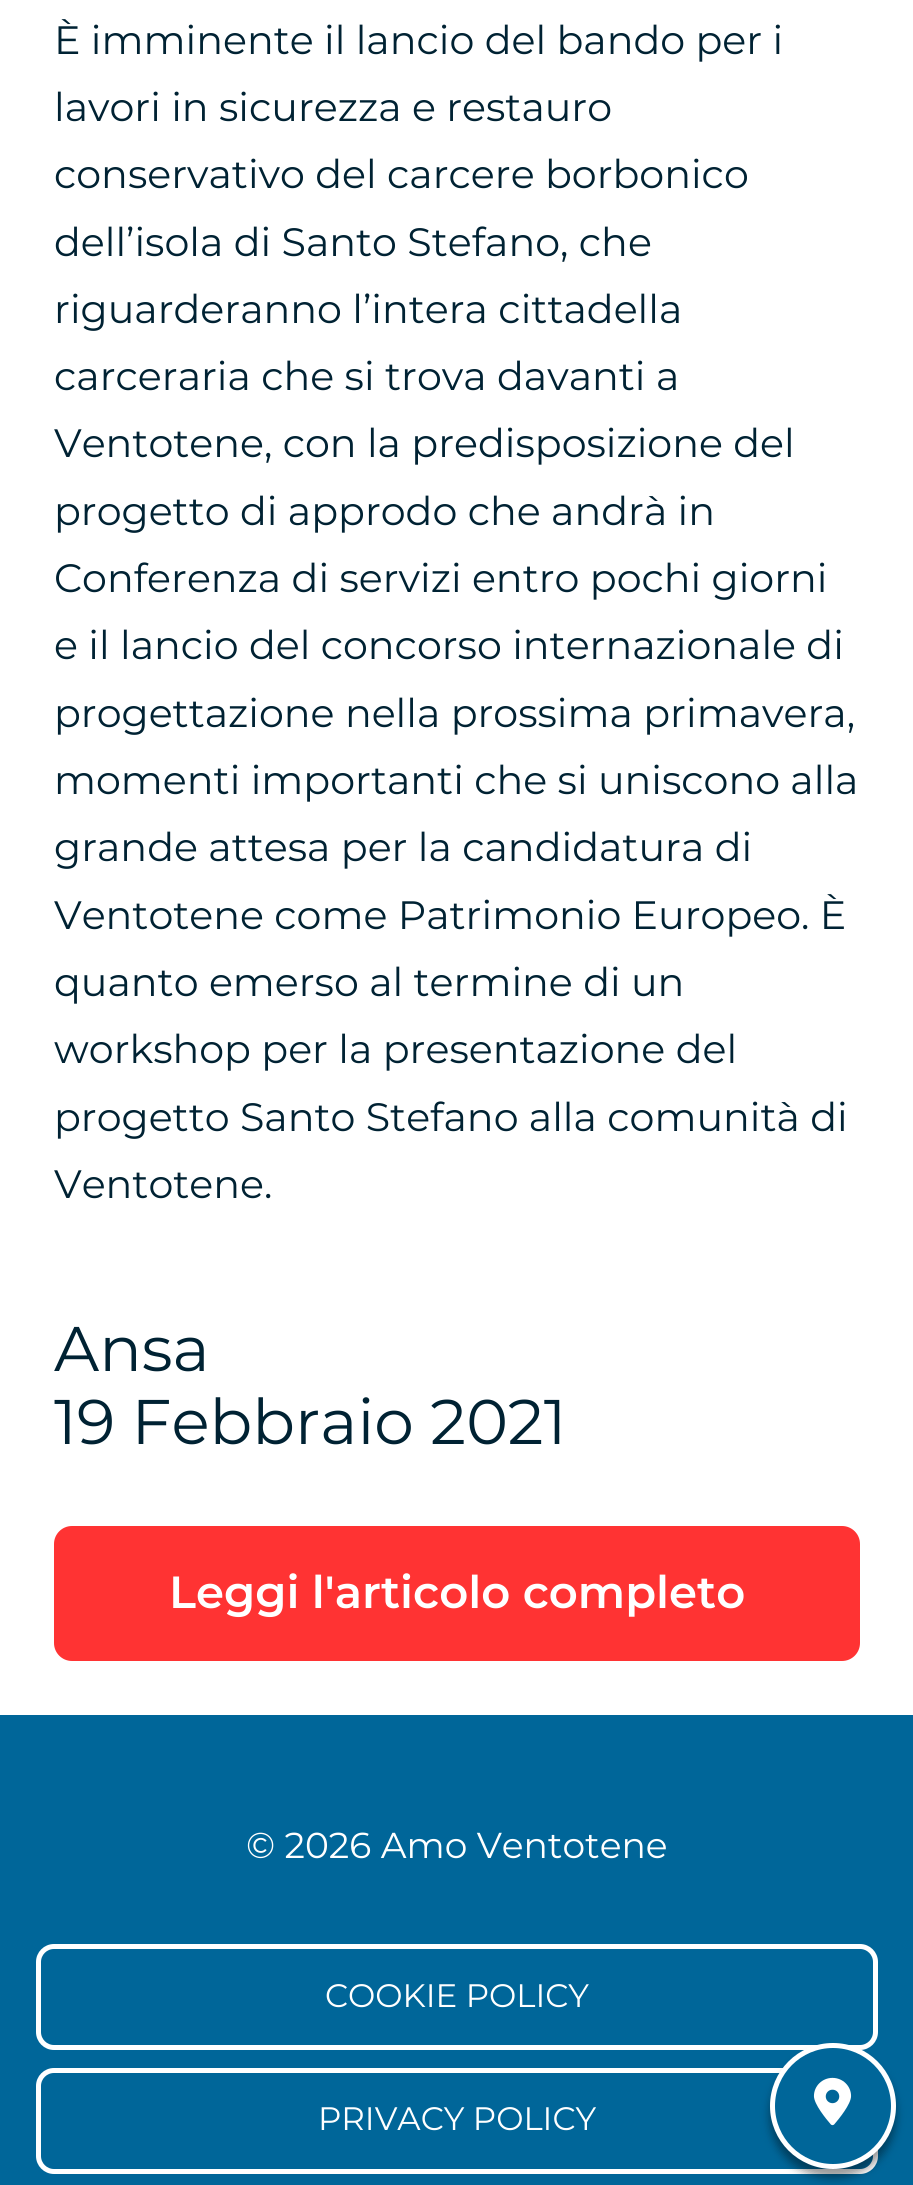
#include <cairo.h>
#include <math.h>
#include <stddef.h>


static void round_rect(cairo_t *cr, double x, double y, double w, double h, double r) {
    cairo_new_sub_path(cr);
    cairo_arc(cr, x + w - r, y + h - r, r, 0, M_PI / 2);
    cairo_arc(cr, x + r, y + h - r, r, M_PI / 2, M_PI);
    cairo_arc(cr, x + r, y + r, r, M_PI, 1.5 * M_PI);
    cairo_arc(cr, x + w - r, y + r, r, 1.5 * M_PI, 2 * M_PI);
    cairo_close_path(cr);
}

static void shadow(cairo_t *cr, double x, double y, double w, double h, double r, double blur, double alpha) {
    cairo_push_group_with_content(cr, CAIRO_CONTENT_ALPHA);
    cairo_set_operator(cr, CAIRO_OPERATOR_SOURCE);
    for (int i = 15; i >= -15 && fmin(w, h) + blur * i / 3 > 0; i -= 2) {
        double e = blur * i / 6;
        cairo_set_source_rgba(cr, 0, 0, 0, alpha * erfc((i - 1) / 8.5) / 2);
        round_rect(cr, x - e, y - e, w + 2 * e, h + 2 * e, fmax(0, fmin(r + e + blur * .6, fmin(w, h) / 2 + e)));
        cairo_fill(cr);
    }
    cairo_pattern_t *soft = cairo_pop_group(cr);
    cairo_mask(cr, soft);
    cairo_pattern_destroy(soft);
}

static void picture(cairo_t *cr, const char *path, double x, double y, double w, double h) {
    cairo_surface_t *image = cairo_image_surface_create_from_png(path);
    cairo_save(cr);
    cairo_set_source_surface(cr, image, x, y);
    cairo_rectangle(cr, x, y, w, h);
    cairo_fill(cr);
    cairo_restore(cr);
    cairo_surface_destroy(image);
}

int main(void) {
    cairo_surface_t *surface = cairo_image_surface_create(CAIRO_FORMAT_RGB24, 913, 2185);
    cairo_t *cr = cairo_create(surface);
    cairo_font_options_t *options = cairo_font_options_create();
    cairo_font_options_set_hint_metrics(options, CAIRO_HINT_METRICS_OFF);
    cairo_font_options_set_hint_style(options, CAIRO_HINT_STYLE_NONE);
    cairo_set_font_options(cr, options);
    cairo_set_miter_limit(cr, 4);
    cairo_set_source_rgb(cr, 1, 1, 1);
    cairo_paint(cr);
    cairo_select_font_face(cr, "Montserrat", CAIRO_FONT_SLANT_NORMAL, CAIRO_FONT_WEIGHT_NORMAL);
    cairo_set_font_size(cr, 39.6);
    cairo_set_source_rgb(cr, 0, 0.133, 0.2);
    cairo_move_to(cr, 54, 54);
    cairo_show_text(cr, "È imminente il lancio del bando per i");
    cairo_move_to(cr, 54, 121);
    cairo_show_text(cr, "lavori in sicurezza e restauro");
    cairo_move_to(cr, 54, 188);
    cairo_show_text(cr, "conservativo del carcere borbonico");
    cairo_move_to(cr, 54, 256);
    cairo_show_text(cr, "dell’isola di Santo Stefano, che");
    cairo_move_to(cr, 54, 323);
    cairo_show_text(cr, "riguarderanno l’intera cittadella");
    cairo_move_to(cr, 54, 390);
    cairo_show_text(cr, "carceraria che si trova davanti a");
    cairo_move_to(cr, 54, 457);
    cairo_show_text(cr, "Ventotene, con la predisposizione del");
    cairo_move_to(cr, 54, 525);
    cairo_show_text(cr, "progetto di approdo che andrà in");
    cairo_move_to(cr, 54, 592);
    cairo_show_text(cr, "Conferenza di servizi entro pochi giorni");
    cairo_move_to(cr, 54, 659);
    cairo_show_text(cr, "e il lancio del concorso internazionale di");
    cairo_move_to(cr, 54, 727);
    cairo_show_text(cr, "progettazione nella prossima primavera,");
    cairo_move_to(cr, 54, 794);
    cairo_show_text(cr, "momenti importanti che si uniscono alla");
    cairo_move_to(cr, 54, 861);
    cairo_show_text(cr, "grande attesa per la candidatura di");
    cairo_move_to(cr, 54, 929);
    cairo_show_text(cr, "Ventotene come Patrimonio Europeo. È");
    cairo_move_to(cr, 54, 996);
    cairo_show_text(cr, "quanto emerso al termine di un");
    cairo_move_to(cr, 54, 1063);
    cairo_show_text(cr, "workshop per la presentazione del");
    cairo_move_to(cr, 54, 1131);
    cairo_show_text(cr, "progetto Santo Stefano alla comunità di");
    cairo_move_to(cr, 54, 1198);
    cairo_show_text(cr, "Ventotene.");
    cairo_set_font_size(cr, 63);
    cairo_move_to(cr, 54, 1371);
    cairo_show_text(cr, "Ansa");
    cairo_move_to(cr, 54, 1444);
    cairo_show_text(cr, "19 Febbraio 2021");
    cairo_set_source_rgb(cr, 1, 0.2, 0.2);
    round_rect(cr, 54, 1526, 806, 135, 18);
    cairo_fill(cr);
    cairo_select_font_face(cr, "Montserrat SemiBold", CAIRO_FONT_SLANT_NORMAL, CAIRO_FONT_WEIGHT_NORMAL);
    cairo_set_font_size(cr, 45);
    cairo_set_source_rgb(cr, 1, 1, 1);
    cairo_move_to(cr, 169, 1608);
    cairo_show_text(cr, "Leggi l'articolo completo");
    cairo_set_source_rgb(cr, 0, 0.4, 0.6);
    cairo_rectangle(cr, 0, 1715, 913, 470);
    cairo_fill(cr);
    cairo_select_font_face(cr, "Montserrat", CAIRO_FONT_SLANT_NORMAL, CAIRO_FONT_WEIGHT_NORMAL);
    cairo_set_font_size(cr, 36);
    cairo_set_source_rgb(cr, 1, 1, 1);
    cairo_move_to(cr, 246, 1858);
    cairo_show_text(cr, "© 2026 Amo Ventotene");
    round_rect(cr, 38.5, 1946.5, 837, 101, 15.5);
    cairo_set_line_width(cr, 5);
    cairo_stroke(cr);
    cairo_set_font_size(cr, 32.5);
    cairo_move_to(cr, 325, 2007);
    cairo_show_text(cr, "COOKIE POLICY");
    round_rect(cr, 38.5, 2070.5, 837, 101, 15.5);
    cairo_stroke(cr);
    cairo_move_to(cr, 318, 2130);
    cairo_show_text(cr, "PRIVACY POLICY");
    cairo_set_source_rgb(cr, 0, 0, 0);
    shadow(cr, 770, 2052, 126, 126, 63, 4.5, 0.4);
    cairo_set_source_rgb(cr, 0, 0.4, 0.6);
    cairo_arc(cr, 833, 2106, 60.5, 0, 2 * M_PI);
    cairo_fill_preserve(cr);
    cairo_set_source_rgb(cr, 1, 1, 1);
    cairo_stroke(cr);
    picture(cr, "img1.png", 813, 2077, 39, 49);
    cairo_surface_write_to_png(surface, "page.png");
    cairo_font_options_destroy(options);
    cairo_destroy(cr);
    cairo_surface_destroy(surface);
    return 0;
}
